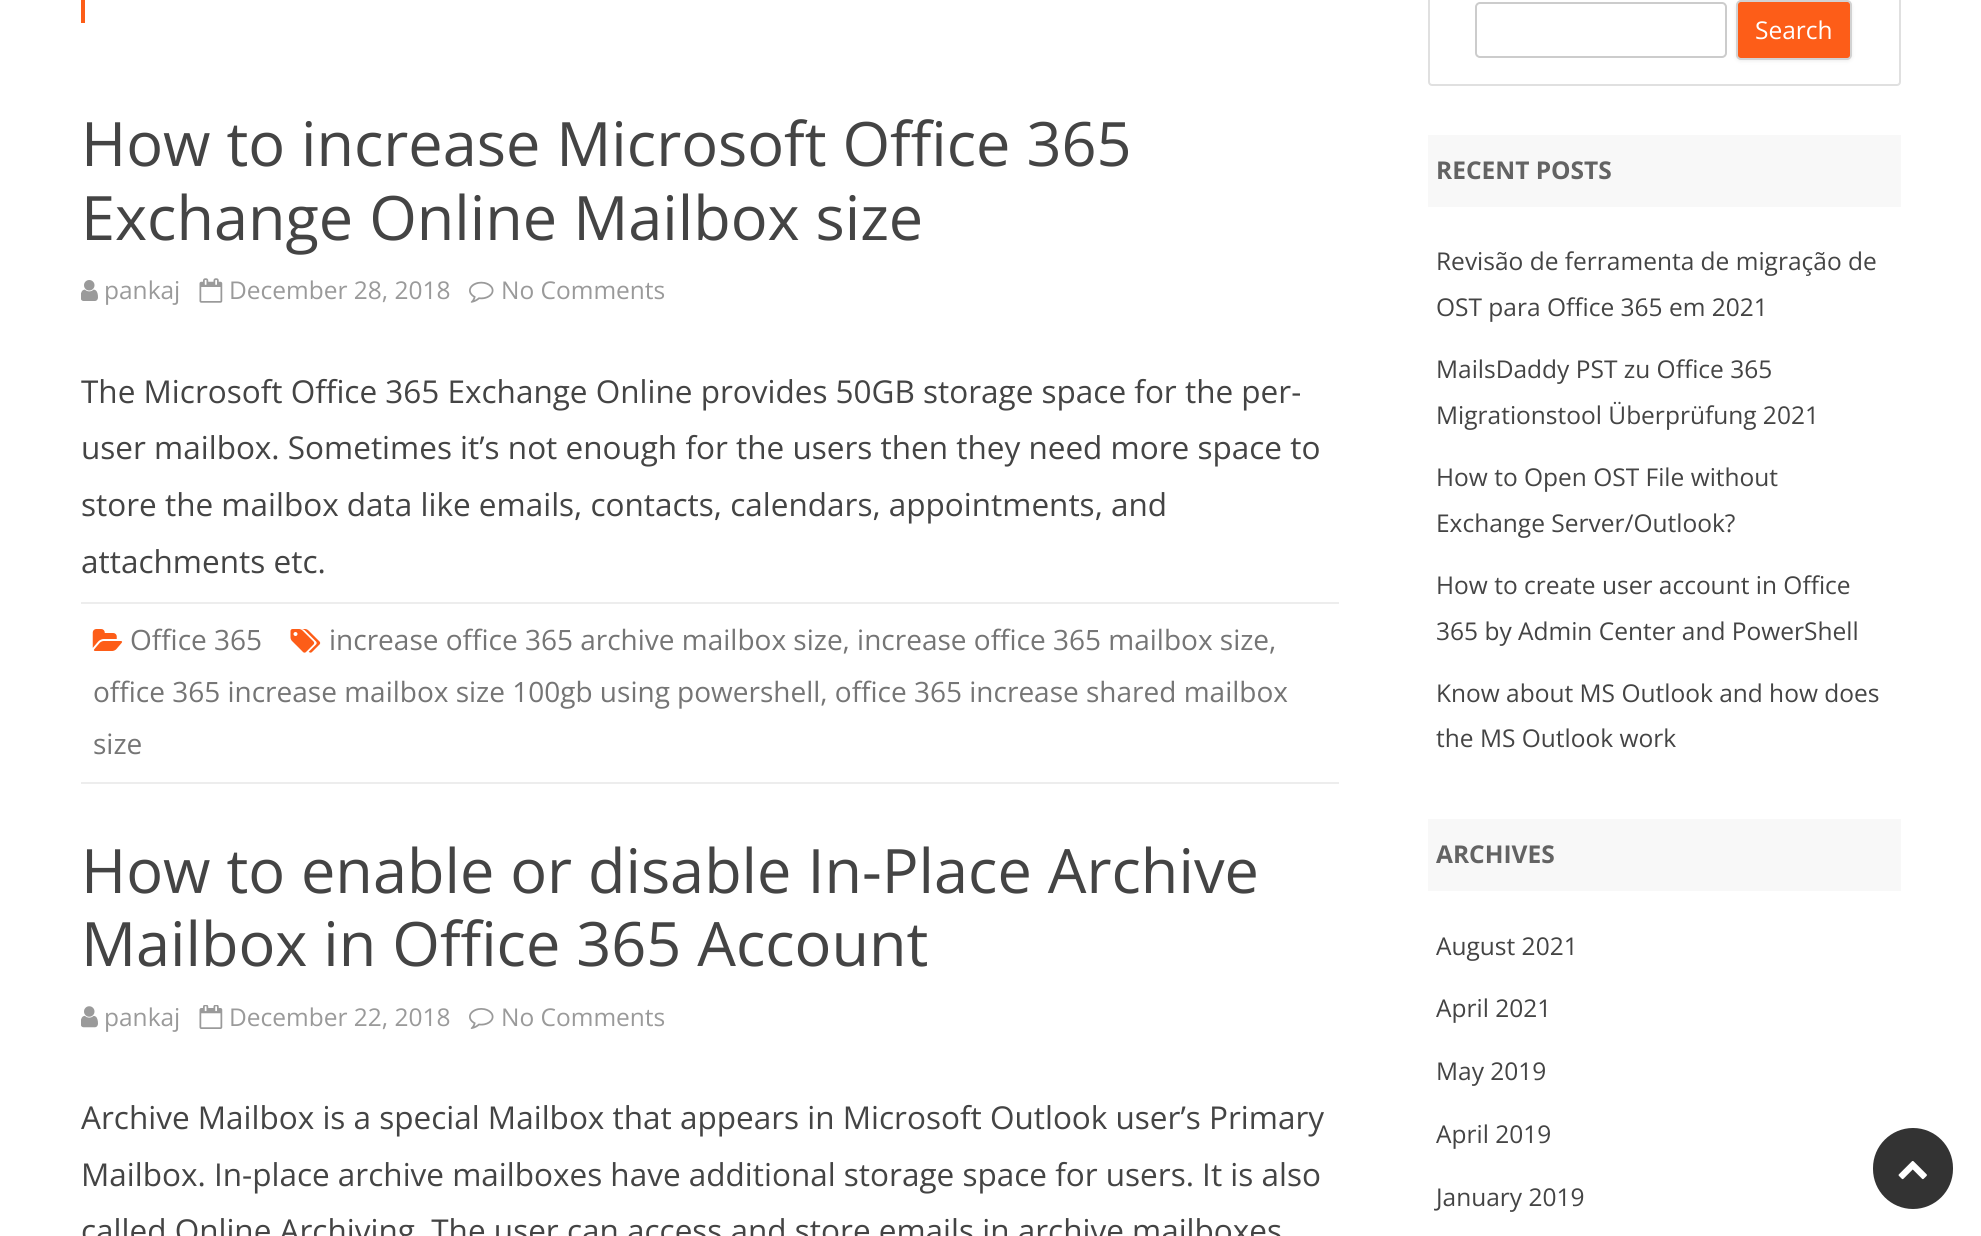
#include <cairo.h>
#include <math.h>
#include <stddef.h>


static void round_rect(cairo_t *cr, double x, double y, double w, double h, double r) {
    cairo_new_sub_path(cr);
    cairo_arc(cr, x + w - r, y + h - r, r, 0, M_PI / 2);
    cairo_arc(cr, x + r, y + h - r, r, M_PI / 2, M_PI);
    cairo_arc(cr, x + r, y + r, r, M_PI, 1.5 * M_PI);
    cairo_arc(cr, x + w - r, y + r, r, 1.5 * M_PI, 2 * M_PI);
    cairo_close_path(cr);
}

static void shadow(cairo_t *cr, double x, double y, double w, double h, double r, double blur, double alpha) {
    cairo_push_group_with_content(cr, CAIRO_CONTENT_ALPHA);
    cairo_set_operator(cr, CAIRO_OPERATOR_SOURCE);
    for (int i = 15; i >= -15 && fmin(w, h) + blur * i / 3 > 0; i -= 2) {
        double e = blur * i / 6;
        cairo_set_source_rgba(cr, 0, 0, 0, alpha * erfc((i - 1) / 8.5) / 2);
        round_rect(cr, x - e, y - e, w + 2 * e, h + 2 * e, fmax(0, fmin(r + e + blur * .6, fmin(w, h) / 2 + e)));
        cairo_fill(cr);
    }
    cairo_pattern_t *soft = cairo_pop_group(cr);
    cairo_mask(cr, soft);
    cairo_pattern_destroy(soft);
}

static void picture(cairo_t *cr, const char *path, double x, double y, double w, double h) {
    cairo_surface_t *image = cairo_image_surface_create_from_png(path);
    cairo_save(cr);
    cairo_set_source_surface(cr, image, x, y);
    cairo_rectangle(cr, x, y, w, h);
    cairo_fill(cr);
    cairo_restore(cr);
    cairo_surface_destroy(image);
}

int main(void) {
    cairo_surface_t *surface = cairo_image_surface_create(CAIRO_FORMAT_RGB24, 1981, 1236);
    cairo_t *cr = cairo_create(surface);
    cairo_font_options_t *options = cairo_font_options_create();
    cairo_font_options_set_hint_metrics(options, CAIRO_HINT_METRICS_OFF);
    cairo_font_options_set_hint_style(options, CAIRO_HINT_STYLE_NONE);
    cairo_set_font_options(cr, options);
    cairo_set_miter_limit(cr, 4);
    cairo_set_source_rgb(cr, 1, 1, 1);
    cairo_paint(cr);
    cairo_set_source_rgb(cr, 0.992, 0.365, 0.094);
    cairo_rectangle(cr, 81, 0, 4, 23);
    cairo_fill(cr);
    cairo_set_source_rgb(cr, 0.929, 0.929, 0.929);
    cairo_rectangle(cr, 81, 782, 1258, 2);
    cairo_fill(cr);
    cairo_select_font_face(cr, "Open Sans", CAIRO_FONT_SLANT_NORMAL, CAIRO_FONT_WEIGHT_NORMAL);
    cairo_set_font_size(cr, 61.25);
    cairo_set_source_rgb(cr, 0.267, 0.267, 0.267);
    cairo_move_to(cr, 81, 166);
    cairo_show_text(cr, "How to increase Microsoft Office 365");
    cairo_move_to(cr, 81, 240);
    cairo_show_text(cr, "Exchange Online Mailbox size");
    picture(cr, "img1.png", 81, 280, 17, 21);
    cairo_set_font_size(cr, 24.5);
    cairo_set_source_rgb(cr, 0.604, 0.604, 0.604);
    cairo_move_to(cr, 104, 299);
    cairo_show_text(cr, "pankaj");
    picture(cr, "img2.png", 199, 278, 24, 25);
    cairo_move_to(cr, 229, 299);
    cairo_show_text(cr, "December 28, 2018");
    picture(cr, "img3.png", 469, 281, 25, 22);
    cairo_move_to(cr, 501, 299);
    cairo_show_text(cr, "No Comments");
    cairo_set_source_rgb(cr, 0.929, 0.929, 0.929);
    cairo_rectangle(cr, 81, 602, 1258, 2);
    cairo_fill(cr);
    cairo_save(cr);
    cairo_rectangle(cr, 81, 362, 1258, 240);
    cairo_clip(cr);
    cairo_set_font_size(cr, 31.5);
    cairo_set_source_rgb(cr, 0.267, 0.267, 0.267);
    cairo_move_to(cr, 81, 403);
    cairo_show_text(cr, "The Microsoft Office 365 Exchange Online provides 50GB storage space for the per-");
    cairo_restore(cr);
    cairo_set_font_size(cr, 31.5);
    cairo_set_source_rgb(cr, 0.267, 0.267, 0.267);
    cairo_move_to(cr, 81, 459);
    cairo_show_text(cr, "user mailbox. Sometimes it’s not enough for the users then they need more space to");
    cairo_move_to(cr, 81, 516);
    cairo_show_text(cr, "store the mailbox data like emails, contacts, calendars, appointments, and");
    cairo_move_to(cr, 81, 573);
    cairo_show_text(cr, "attachments etc.");
    picture(cr, "img4.png", 92, 629, 31, 22);
    cairo_set_font_size(cr, 28);
    cairo_set_source_rgb(cr, 0.459, 0.459, 0.459);
    cairo_move_to(cr, 130, 650);
    cairo_show_text(cr, "Office 365");
    picture(cr, "img5.png", 290, 629, 31, 24);
    cairo_move_to(cr, 329, 650);
    cairo_show_text(cr, "increase office 365 archive mailbox size, increase office 365 mailbox size,");
    cairo_move_to(cr, 93, 702);
    cairo_show_text(cr, "office 365 increase mailbox size 100gb using powershell, office 365 increase shared mailbox");
    cairo_move_to(cr, 93, 754);
    cairo_show_text(cr, "size");
    cairo_set_font_size(cr, 61.25);
    cairo_set_source_rgb(cr, 0.267, 0.267, 0.267);
    cairo_move_to(cr, 81, 893);
    cairo_show_text(cr, "How to enable or disable In-Place Archive");
    cairo_move_to(cr, 81, 966);
    cairo_show_text(cr, "Mailbox in Office 365 Account");
    picture(cr, "img6.png", 81, 1006, 17, 22);
    cairo_set_font_size(cr, 24.5);
    cairo_set_source_rgb(cr, 0.604, 0.604, 0.604);
    cairo_move_to(cr, 104, 1026);
    cairo_show_text(cr, "pankaj");
    picture(cr, "img7.png", 199, 1005, 24, 24);
    cairo_move_to(cr, 229, 1026);
    cairo_show_text(cr, "December 22, 2018");
    picture(cr, "img8.png", 469, 1008, 25, 21);
    cairo_move_to(cr, 501, 1026);
    cairo_show_text(cr, "No Comments");
    cairo_set_font_size(cr, 31.5);
    cairo_set_source_rgb(cr, 0.267, 0.267, 0.267);
    cairo_move_to(cr, 81, 1129);
    cairo_show_text(cr, "Archive Mailbox is a special Mailbox that appears in Microsoft Outlook user’s Primary");
    cairo_move_to(cr, 81, 1186);
    cairo_show_text(cr, "Mailbox. In-place archive mailboxes have additional storage space for users. It is also");
    cairo_move_to(cr, 81, 1242);
    cairo_show_text(cr, "called Online Archiving. The user can access and store emails in archive mailboxes");
    round_rect(cr, 1429, -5, 471, 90, 3);
    cairo_set_source_rgb(cr, 0.878, 0.878, 0.878);
    cairo_stroke(cr);
    round_rect(cr, 1476, 3, 250, 54, 4);
    cairo_set_source_rgb(cr, 0.8, 0.8, 0.8);
    cairo_stroke(cr);
    cairo_set_source_rgb(cr, 0.251, 0.251, 0.251);
    shadow(cr, 1736, 2, 116, 59, 5, 2, 0.1);
    cairo_set_source_rgb(cr, 0.992, 0.365, 0.094);
    round_rect(cr, 1737, 1, 114, 58, 4);
    cairo_fill_preserve(cr);
    cairo_set_source_rgb(cr, 0.824, 0.824, 0.824);
    cairo_stroke(cr);
    cairo_set_font_size(cr, 24.5);
    cairo_set_source_rgb(cr, 1, 1, 1);
    cairo_move_to(cr, 1755, 39);
    cairo_show_text(cr, "Search");
    cairo_set_source_rgb(cr, 0.969, 0.969, 0.969);
    cairo_rectangle(cr, 1428, 135, 473, 72);
    cairo_fill(cr);
    cairo_select_font_face(cr, "Open Sans", CAIRO_FONT_SLANT_NORMAL, CAIRO_FONT_WEIGHT_BOLD);
    cairo_set_source_rgb(cr, 0.388, 0.388, 0.388);
    cairo_move_to(cr, 1436, 179);
    cairo_show_text(cr, "RECENT POSTS");
    cairo_select_font_face(cr, "Open Sans", CAIRO_FONT_SLANT_NORMAL, CAIRO_FONT_WEIGHT_NORMAL);
    cairo_set_source_rgb(cr, 0.267, 0.267, 0.267);
    cairo_move_to(cr, 1436, 270);
    cairo_show_text(cr, "Revisão de ferramenta de migração de");
    cairo_move_to(cr, 1436, 316);
    cairo_show_text(cr, "OST para Office 365 em 2021");
    cairo_move_to(cr, 1436, 378);
    cairo_show_text(cr, "MailsDaddy PST zu Office 365");
    cairo_move_to(cr, 1436, 424);
    cairo_show_text(cr, "Migrationstool Überprüfung 2021");
    cairo_move_to(cr, 1436, 486);
    cairo_show_text(cr, "How to Open OST File without");
    cairo_move_to(cr, 1436, 532);
    cairo_show_text(cr, "Exchange Server/Outlook?");
    cairo_move_to(cr, 1436, 594);
    cairo_show_text(cr, "How to create user account in Office");
    cairo_move_to(cr, 1436, 640);
    cairo_show_text(cr, "365 by Admin Center and PowerShell");
    cairo_move_to(cr, 1436, 702);
    cairo_show_text(cr, "Know about MS Outlook and how does");
    cairo_move_to(cr, 1436, 747);
    cairo_show_text(cr, "the MS Outlook work");
    cairo_set_source_rgb(cr, 0.969, 0.969, 0.969);
    cairo_rectangle(cr, 1428, 819, 473, 72);
    cairo_fill(cr);
    cairo_select_font_face(cr, "Open Sans", CAIRO_FONT_SLANT_NORMAL, CAIRO_FONT_WEIGHT_BOLD);
    cairo_set_source_rgb(cr, 0.388, 0.388, 0.388);
    cairo_move_to(cr, 1436, 863);
    cairo_show_text(cr, "ARCHIVES");
    cairo_select_font_face(cr, "Open Sans", CAIRO_FONT_SLANT_NORMAL, CAIRO_FONT_WEIGHT_NORMAL);
    cairo_set_source_rgb(cr, 0.267, 0.267, 0.267);
    cairo_move_to(cr, 1436, 955);
    cairo_show_text(cr, "August 2021");
    cairo_move_to(cr, 1436, 1017);
    cairo_show_text(cr, "April 2021");
    cairo_move_to(cr, 1436, 1080);
    cairo_show_text(cr, "May 2019");
    cairo_move_to(cr, 1436, 1143);
    cairo_show_text(cr, "April 2019");
    cairo_move_to(cr, 1436, 1206);
    cairo_show_text(cr, "January 2019");
    cairo_set_source_rgb(cr, 0.2, 0.2, 0.2);
    round_rect(cr, 1871, 1126, 84, 85, 42);
    cairo_fill_preserve(cr);
    cairo_set_source_rgb(cr, 1, 1, 1);
    cairo_set_line_width(cr, 4);
    cairo_stroke(cr);
    picture(cr, "img9.png", 1898, 1161, 29, 19);
    cairo_surface_write_to_png(surface, "page.png");
    cairo_font_options_destroy(options);
    cairo_destroy(cr);
    cairo_surface_destroy(surface);
    return 0;
}
